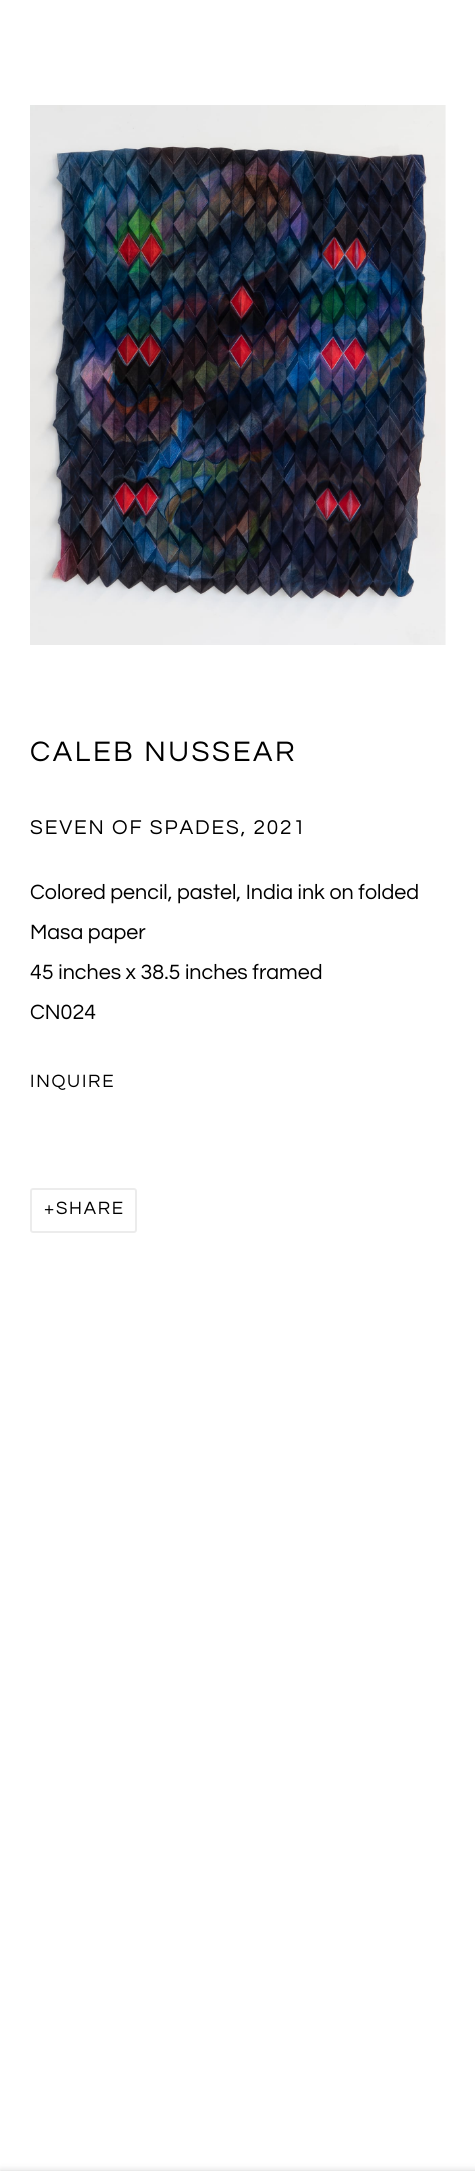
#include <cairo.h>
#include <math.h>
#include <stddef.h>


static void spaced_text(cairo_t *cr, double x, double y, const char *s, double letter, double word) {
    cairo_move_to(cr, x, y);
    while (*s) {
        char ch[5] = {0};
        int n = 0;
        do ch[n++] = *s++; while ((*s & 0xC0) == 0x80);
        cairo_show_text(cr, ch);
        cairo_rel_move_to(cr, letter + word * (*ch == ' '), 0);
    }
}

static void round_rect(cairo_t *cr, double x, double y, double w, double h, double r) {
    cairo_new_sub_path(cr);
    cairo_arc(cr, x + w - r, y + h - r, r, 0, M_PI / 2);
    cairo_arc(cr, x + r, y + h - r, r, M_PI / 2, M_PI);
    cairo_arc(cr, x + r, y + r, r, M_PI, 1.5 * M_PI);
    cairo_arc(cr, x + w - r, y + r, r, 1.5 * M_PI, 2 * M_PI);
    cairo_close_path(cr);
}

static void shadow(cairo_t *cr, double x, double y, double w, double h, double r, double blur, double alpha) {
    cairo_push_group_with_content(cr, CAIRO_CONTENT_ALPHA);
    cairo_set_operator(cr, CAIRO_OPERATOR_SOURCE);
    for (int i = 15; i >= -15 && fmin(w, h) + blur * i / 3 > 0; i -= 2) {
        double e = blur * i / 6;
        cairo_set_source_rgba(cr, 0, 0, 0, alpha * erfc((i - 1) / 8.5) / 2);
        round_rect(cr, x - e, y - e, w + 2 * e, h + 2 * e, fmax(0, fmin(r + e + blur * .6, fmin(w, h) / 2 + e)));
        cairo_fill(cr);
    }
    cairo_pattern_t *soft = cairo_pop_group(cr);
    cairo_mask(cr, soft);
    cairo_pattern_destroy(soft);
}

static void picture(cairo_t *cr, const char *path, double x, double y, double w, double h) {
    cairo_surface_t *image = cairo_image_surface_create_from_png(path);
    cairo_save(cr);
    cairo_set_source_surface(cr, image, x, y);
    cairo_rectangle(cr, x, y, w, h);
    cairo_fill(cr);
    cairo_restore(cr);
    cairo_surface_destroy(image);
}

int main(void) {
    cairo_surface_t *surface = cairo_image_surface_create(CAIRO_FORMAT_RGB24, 475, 2171);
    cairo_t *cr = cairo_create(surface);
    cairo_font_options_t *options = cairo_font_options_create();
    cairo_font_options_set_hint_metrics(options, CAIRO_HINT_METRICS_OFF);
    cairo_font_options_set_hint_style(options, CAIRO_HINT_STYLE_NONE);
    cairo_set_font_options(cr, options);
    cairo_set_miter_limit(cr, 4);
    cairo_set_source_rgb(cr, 1, 1, 1);
    cairo_paint(cr);
    picture(cr, "img1.png", 30, 105, 416, 540);
    cairo_select_font_face(cr, "Questrial", CAIRO_FONT_SLANT_NORMAL, CAIRO_FONT_WEIGHT_NORMAL);
    cairo_set_font_size(cr, 29.25);
    cairo_set_source_rgb(cr, 0, 0, 0);
    spaced_text(cr, 30, 761, "CALEB NUSSEAR", 2.6, 0);
    cairo_set_font_size(cr, 20.75);
    spaced_text(cr, 30, 834, "SEVEN OF SPADES, 2021", 1.9, 0);
    cairo_set_font_size(cr, 21.5);
    cairo_move_to(cr, 30, 899);
    cairo_show_text(cr, "Colored pencil, pastel, India ink on folded");
    cairo_move_to(cr, 30, 939);
    cairo_show_text(cr, "Masa paper");
    cairo_move_to(cr, 30, 979);
    cairo_show_text(cr, "45 inches x 38.5 inches framed");
    cairo_move_to(cr, 30, 1019);
    cairo_show_text(cr, "CN024");
    cairo_set_font_size(cr, 18.5);
    spaced_text(cr, 30, 1087, "INQUIRE", 1.75, 0);
    round_rect(cr, 31, 1189, 105, 43, 2);
    cairo_set_source_rgb(cr, 0.922, 0.922, 0.922);
    cairo_stroke(cr);
    cairo_set_source_rgb(cr, 0, 0, 0);
    spaced_text(cr, 44, 1214, "+SHARE", 1.75, 0);
    cairo_set_source_rgb(cr, 0, 0, 0);
    shadow(cr, 0, 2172, 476, 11, 0, 4, 0.23);
    cairo_surface_write_to_png(surface, "page.png");
    cairo_font_options_destroy(options);
    cairo_destroy(cr);
    cairo_surface_destroy(surface);
    return 0;
}
